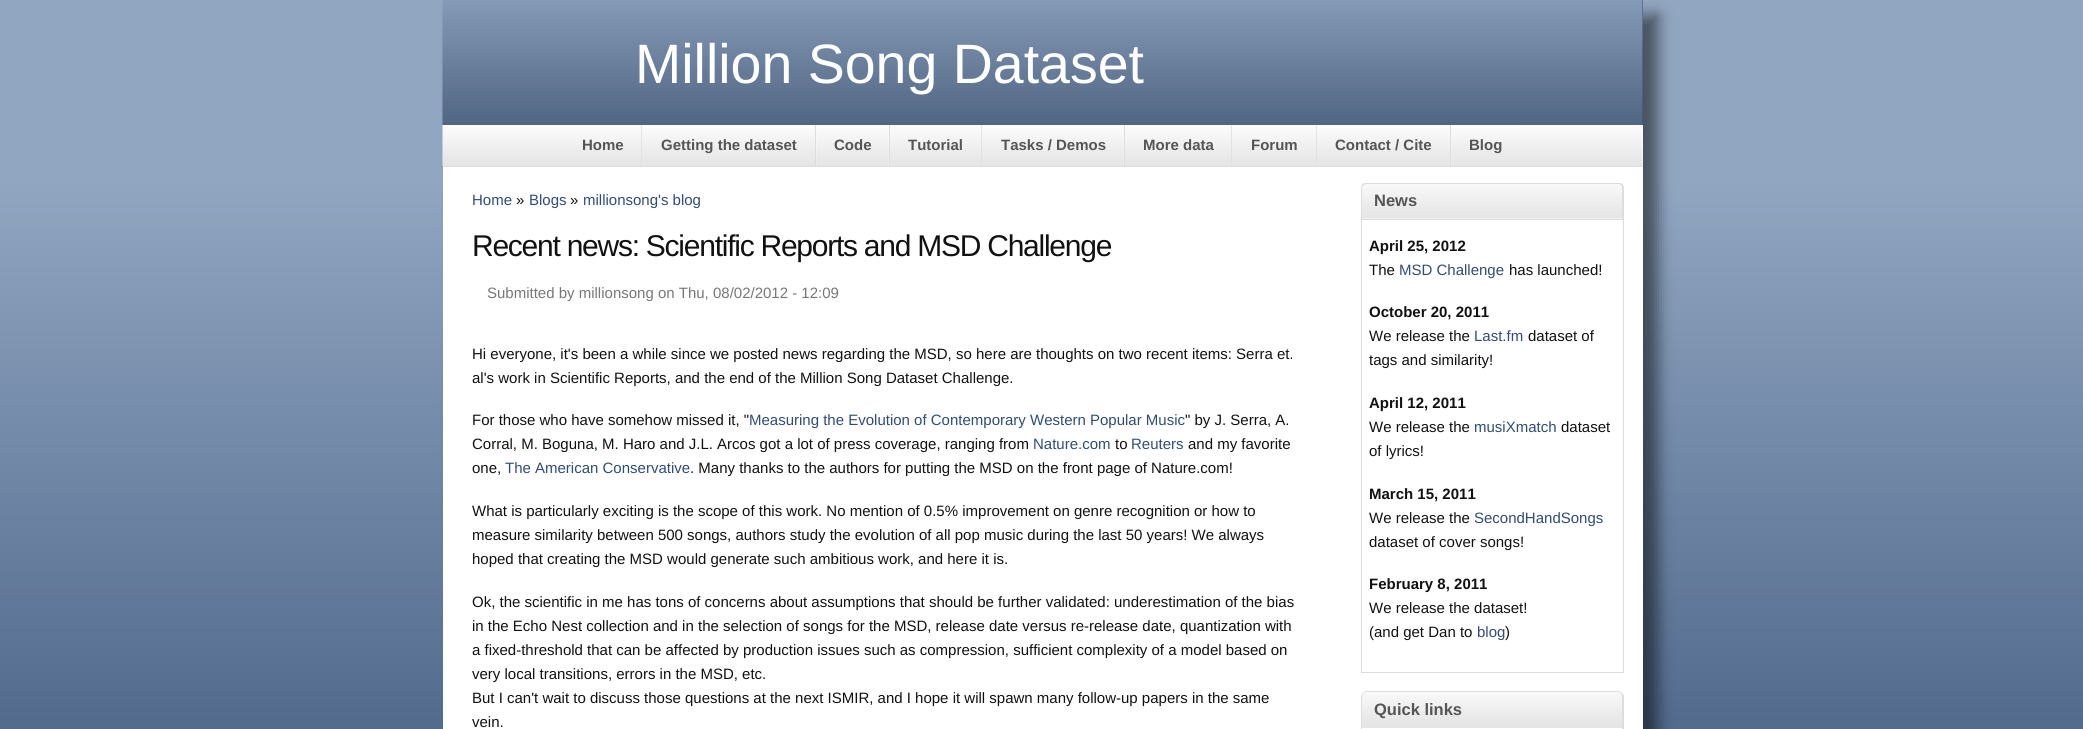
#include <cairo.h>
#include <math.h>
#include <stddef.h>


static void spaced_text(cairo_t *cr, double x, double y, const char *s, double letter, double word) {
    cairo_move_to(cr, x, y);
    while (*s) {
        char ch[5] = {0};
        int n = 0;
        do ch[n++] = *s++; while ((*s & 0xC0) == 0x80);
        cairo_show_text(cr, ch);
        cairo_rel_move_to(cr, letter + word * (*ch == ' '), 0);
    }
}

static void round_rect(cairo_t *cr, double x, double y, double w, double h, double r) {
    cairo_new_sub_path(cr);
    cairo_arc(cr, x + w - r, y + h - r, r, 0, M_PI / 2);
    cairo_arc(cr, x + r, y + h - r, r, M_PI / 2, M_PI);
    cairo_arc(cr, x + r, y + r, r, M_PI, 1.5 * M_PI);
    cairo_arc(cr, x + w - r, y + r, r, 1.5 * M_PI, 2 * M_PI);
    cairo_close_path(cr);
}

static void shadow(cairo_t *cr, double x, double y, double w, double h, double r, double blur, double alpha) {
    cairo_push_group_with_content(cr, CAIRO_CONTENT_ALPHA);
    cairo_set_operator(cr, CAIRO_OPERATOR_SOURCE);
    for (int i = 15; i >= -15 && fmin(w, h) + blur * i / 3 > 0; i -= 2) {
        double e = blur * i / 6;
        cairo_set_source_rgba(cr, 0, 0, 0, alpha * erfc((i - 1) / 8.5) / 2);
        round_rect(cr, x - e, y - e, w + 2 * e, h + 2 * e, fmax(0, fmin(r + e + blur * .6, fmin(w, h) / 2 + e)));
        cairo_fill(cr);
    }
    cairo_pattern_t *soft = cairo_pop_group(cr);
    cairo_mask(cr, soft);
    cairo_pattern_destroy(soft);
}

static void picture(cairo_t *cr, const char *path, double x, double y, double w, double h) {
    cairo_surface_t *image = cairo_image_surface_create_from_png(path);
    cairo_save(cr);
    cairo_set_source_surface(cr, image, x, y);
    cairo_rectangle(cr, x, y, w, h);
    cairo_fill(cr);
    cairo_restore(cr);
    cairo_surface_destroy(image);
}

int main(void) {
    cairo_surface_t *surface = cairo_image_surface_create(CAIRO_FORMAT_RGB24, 2083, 729);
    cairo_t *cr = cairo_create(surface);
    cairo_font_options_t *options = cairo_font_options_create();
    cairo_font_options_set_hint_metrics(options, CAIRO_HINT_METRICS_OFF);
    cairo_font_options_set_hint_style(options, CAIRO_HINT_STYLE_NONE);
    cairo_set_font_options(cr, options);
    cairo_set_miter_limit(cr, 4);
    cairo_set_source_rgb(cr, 1, 1, 1);
    cairo_paint(cr);
    picture(cr, "img1.png", 0, 0, 2083, 729);
    cairo_set_source_rgb(cr, 0, 0, 0);
    shadow(cr, 458, 15, 1200, 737, 0, 7.5, 0.5);
    cairo_set_source_rgb(cr, 1, 1, 1);
    cairo_rectangle(cr, 443, 125, 1200, 604);
    cairo_fill(cr);
    cairo_set_source_rgb(cr, 0.227, 0.306, 0.416);
    cairo_rectangle(cr, 1642, 0, 1, 125);
    cairo_fill(cr);
    picture(cr, "img2.png", 442, 0, 1201, 125);
    cairo_select_font_face(cr, "Liberation Sans", CAIRO_FONT_SLANT_NORMAL, CAIRO_FONT_WEIGHT_NORMAL);
    cairo_set_font_size(cr, 55.5);
    cairo_set_source_rgb(cr, 1, 1, 1);
    cairo_move_to(cr, 635, 83);
    cairo_show_text(cr, "Million Song Dataset");
    picture(cr, "img3.png", 442, 125, 1201, 42);
    cairo_set_source_rgb(cr, 0.867, 0.867, 0.867);
    cairo_rectangle(cr, 443, 166, 1200, 1);
    cairo_fill(cr);
    cairo_rectangle(cr, 641, 125, 1, 41);
    cairo_fill(cr);
    picture(cr, "img4.png", 564, 125, 78, 41);
    cairo_select_font_face(cr, "Liberation Sans", CAIRO_FONT_SLANT_NORMAL, CAIRO_FONT_WEIGHT_BOLD);
    cairo_set_font_size(cr, 15);
    cairo_set_source_rgb(cr, 0.333, 0.333, 0.333);
    cairo_move_to(cr, 582, 150);
    cairo_show_text(cr, "Home");
    cairo_set_source_rgb(cr, 0.867, 0.867, 0.867);
    cairo_rectangle(cr, 815, 125, 1, 41);
    cairo_fill(cr);
    cairo_set_source_rgb(cr, 1, 1, 1);
    cairo_rectangle(cr, 643, 125, 172, 3);
    cairo_fill(cr);
    picture(cr, "img5.png", 643, 128, 172, 38);
    cairo_set_source_rgb(cr, 0.333, 0.333, 0.333);
    cairo_move_to(cr, 661, 150);
    cairo_show_text(cr, "Getting the dataset");
    cairo_set_source_rgb(cr, 0.867, 0.867, 0.867);
    cairo_rectangle(cr, 889, 125, 1, 41);
    cairo_fill(cr);
    cairo_set_source_rgb(cr, 1, 1, 1);
    cairo_rectangle(cr, 816, 125, 73, 41);
    cairo_fill(cr);
    picture(cr, "img6.png", 816, 128, 73, 38);
    cairo_set_source_rgb(cr, 0.333, 0.333, 0.333);
    cairo_move_to(cr, 834, 150);
    cairo_show_text(cr, "Code");
    cairo_set_source_rgb(cr, 0.867, 0.867, 0.867);
    cairo_rectangle(cr, 981, 125, 1, 41);
    cairo_fill(cr);
    picture(cr, "img7.png", 890, 125, 92, 41);
    cairo_set_source_rgb(cr, 0.333, 0.333, 0.333);
    cairo_move_to(cr, 908, 150);
    cairo_show_text(cr, "Tutorial");
    cairo_set_source_rgb(cr, 0.867, 0.867, 0.867);
    cairo_rectangle(cr, 1124, 125, 1, 41);
    cairo_fill(cr);
    cairo_set_source_rgb(cr, 1, 1, 1);
    cairo_rectangle(cr, 983, 125, 141, 41);
    cairo_fill(cr);
    picture(cr, "img8.png", 983, 128, 141, 38);
    cairo_set_source_rgb(cr, 0.333, 0.333, 0.333);
    cairo_move_to(cr, 1001, 150);
    cairo_show_text(cr, "Tasks / Demos");
    cairo_set_source_rgb(cr, 0.867, 0.867, 0.867);
    cairo_rectangle(cr, 1231, 125, 1, 41);
    cairo_fill(cr);
    picture(cr, "img9.png", 1125, 125, 107, 41);
    cairo_set_source_rgb(cr, 0.333, 0.333, 0.333);
    cairo_move_to(cr, 1143, 150);
    cairo_show_text(cr, "More data");
    cairo_set_source_rgb(cr, 0.867, 0.867, 0.867);
    cairo_rectangle(cr, 1316, 125, 1, 41);
    cairo_fill(cr);
    picture(cr, "img10.png", 1233, 125, 84, 41);
    cairo_set_source_rgb(cr, 0.333, 0.333, 0.333);
    cairo_move_to(cr, 1251, 150);
    cairo_show_text(cr, "Forum");
    cairo_set_source_rgb(cr, 0.867, 0.867, 0.867);
    cairo_rectangle(cr, 1450, 125, 1, 41);
    cairo_fill(cr);
    cairo_set_source_rgb(cr, 1, 1, 1);
    cairo_rectangle(cr, 1318, 125, 132, 3);
    cairo_fill(cr);
    picture(cr, "img11.png", 1318, 128, 132, 38);
    cairo_set_source_rgb(cr, 0.333, 0.333, 0.333);
    cairo_move_to(cr, 1335, 150);
    cairo_show_text(cr, "Contact / Cite");
    cairo_set_source_rgb(cr, 1, 1, 1);
    cairo_rectangle(cr, 1451, 125, 69, 41);
    cairo_fill(cr);
    picture(cr, "img12.png", 1451, 128, 69, 38);
    cairo_set_source_rgb(cr, 0.333, 0.333, 0.333);
    cairo_move_to(cr, 1469, 150);
    cairo_show_text(cr, "Blog");
    cairo_select_font_face(cr, "Liberation Sans", CAIRO_FONT_SLANT_NORMAL, CAIRO_FONT_WEIGHT_NORMAL);
    cairo_set_source_rgb(cr, 0.192, 0.298, 0.455);
    cairo_move_to(cr, 472, 205);
    cairo_show_text(cr, "Home");
    cairo_set_source_rgb(cr, 0.067, 0.067, 0.067);
    cairo_move_to(cr, 516, 205);
    cairo_show_text(cr, "»");
    cairo_set_source_rgb(cr, 0.192, 0.298, 0.455);
    cairo_move_to(cr, 529, 205);
    cairo_show_text(cr, "Blogs");
    cairo_set_source_rgb(cr, 0.067, 0.067, 0.067);
    cairo_move_to(cr, 570, 205);
    cairo_show_text(cr, "»");
    cairo_set_source_rgb(cr, 0.192, 0.298, 0.455);
    cairo_move_to(cr, 583, 205);
    cairo_show_text(cr, "millionsong's blog");
    cairo_set_font_size(cr, 30);
    cairo_set_source_rgb(cr, 0.067, 0.067, 0.067);
    spaced_text(cr, 472, 256, "Recent news: Scientific Reports and MSD Challenge", -1.25, 0);
    cairo_set_font_size(cr, 15);
    cairo_set_source_rgb(cr, 0.467, 0.467, 0.467);
    cairo_move_to(cr, 487, 298);
    cairo_show_text(cr, "Submitted by millionsong on Thu, 08/02/2012 - 12:09");
    cairo_set_source_rgb(cr, 0.067, 0.067, 0.067);
    cairo_move_to(cr, 472, 359);
    cairo_show_text(cr, "Hi everyone, it's been a while since we posted news regarding the MSD, so here are thoughts on two recent items: Serra et.");
    cairo_move_to(cr, 472, 383);
    cairo_show_text(cr, "al's work in Scientific Reports, and the end of the Million Song Dataset Challenge.");
    cairo_move_to(cr, 472, 425);
    cairo_show_text(cr, "For those who have somehow missed it, \"");
    cairo_set_source_rgb(cr, 0.192, 0.298, 0.455);
    cairo_move_to(cr, 749, 425);
    cairo_show_text(cr, "Measuring the Evolution of Contemporary Western Popular Music");
    cairo_set_source_rgb(cr, 0.067, 0.067, 0.067);
    cairo_move_to(cr, 1185, 425);
    cairo_show_text(cr, "\" by J. Serra, A.");
    cairo_move_to(cr, 472, 449);
    cairo_show_text(cr, "Corral, M. Boguna, M. Haro and J.L. Arcos got a lot of press coverage, ranging from");
    cairo_set_source_rgb(cr, 0.192, 0.298, 0.455);
    cairo_move_to(cr, 1033, 449);
    cairo_show_text(cr, "Nature.com");
    cairo_set_source_rgb(cr, 0.067, 0.067, 0.067);
    cairo_move_to(cr, 1115, 449);
    cairo_show_text(cr, "to");
    cairo_set_source_rgb(cr, 0.192, 0.298, 0.455);
    cairo_move_to(cr, 1131, 449);
    cairo_show_text(cr, "Reuters");
    cairo_set_source_rgb(cr, 0.067, 0.067, 0.067);
    cairo_move_to(cr, 1188, 449);
    cairo_show_text(cr, "and my favorite");
    cairo_move_to(cr, 472, 473);
    cairo_show_text(cr, "one,");
    cairo_set_source_rgb(cr, 0.192, 0.298, 0.455);
    cairo_move_to(cr, 505, 473);
    cairo_show_text(cr, "The American Conservative");
    cairo_set_source_rgb(cr, 0.067, 0.067, 0.067);
    cairo_move_to(cr, 690, 473);
    cairo_show_text(cr, ". Many thanks to the authors for putting the MSD on the front page of Nature.com!");
    cairo_move_to(cr, 472, 516);
    cairo_show_text(cr, "What is particularly exciting is the scope of this work. No mention of 0.5% improvement on genre recognition or how to");
    cairo_move_to(cr, 472, 540);
    cairo_show_text(cr, "measure similarity between 500 songs, authors study the evolution of all pop music during the last 50 years! We always");
    cairo_move_to(cr, 472, 564);
    cairo_show_text(cr, "hoped that creating the MSD would generate such ambitious work, and here it is.");
    cairo_move_to(cr, 472, 607);
    cairo_show_text(cr, "Ok, the scientific in me has tons of concerns about assumptions that should be further validated: underestimation of the bias");
    cairo_move_to(cr, 472, 631);
    cairo_show_text(cr, "in the Echo Nest collection and in the selection of songs for the MSD, release date versus re-release date, quantization with");
    cairo_move_to(cr, 472, 655);
    cairo_show_text(cr, "a fixed-threshold that can be affected by production issues such as compression, sufficient complexity of a model based on");
    cairo_move_to(cr, 472, 679);
    cairo_show_text(cr, "very local transitions, errors in the MSD, etc.");
    cairo_move_to(cr, 472, 703);
    cairo_show_text(cr, "But I can't wait to discuss those questions at the next ISMIR, and I hope it will spawn many follow-up papers in the same");
    cairo_move_to(cr, 472, 727);
    cairo_show_text(cr, "vein.");
    picture(cr, "img13.png", 1361, 183, 263, 36);
    cairo_save(cr);
    cairo_rectangle(cr, 1361, 183, 263, 490);
    cairo_clip(cr);
    cairo_set_source_rgb(cr, 0.867, 0.867, 0.867);
    cairo_set_fill_rule(cr, CAIRO_FILL_RULE_EVEN_ODD);
    cairo_new_path(cr);
    cairo_move_to(cr, 1367, 182);
    cairo_line_to(cr, 1618, 182);
    cairo_curve_to(cr, 1621, 182, 1624, 185, 1624, 188);
    cairo_line_to(cr, 1624, 219);
    cairo_line_to(cr, 1361, 219);
    cairo_line_to(cr, 1361, 188);
    cairo_curve_to(cr, 1361, 185, 1364, 182, 1367, 182);
    cairo_close_path(cr);
    cairo_move_to(cr, 1367, 184);
    cairo_line_to(cr, 1618, 184);
    cairo_curve_to(cr, 1621, 184, 1622, 186, 1622, 188);
    cairo_line_to(cr, 1622, 219);
    cairo_line_to(cr, 1362, 219);
    cairo_line_to(cr, 1362, 188);
    cairo_curve_to(cr, 1362, 186, 1364, 184, 1367, 184);
    cairo_close_path(cr);
    cairo_fill(cr);
    cairo_restore(cr);
    cairo_select_font_face(cr, "Liberation Sans", CAIRO_FONT_SLANT_NORMAL, CAIRO_FONT_WEIGHT_BOLD);
    cairo_set_font_size(cr, 16.5);
    cairo_set_source_rgb(cr, 0.333, 0.333, 0.333);
    cairo_move_to(cr, 1374, 206);
    cairo_show_text(cr, "News");
    cairo_rectangle(cr, 1361.5, 219.5, 262, 453);
    cairo_set_source_rgb(cr, 0.867, 0.867, 0.867);
    cairo_set_line_width(cr, 1);
    cairo_stroke(cr);
    cairo_set_font_size(cr, 15);
    cairo_set_source_rgb(cr, 0.067, 0.067, 0.067);
    cairo_move_to(cr, 1369, 251);
    cairo_show_text(cr, "April 25, 2012");
    cairo_select_font_face(cr, "Liberation Sans", CAIRO_FONT_SLANT_NORMAL, CAIRO_FONT_WEIGHT_NORMAL);
    cairo_move_to(cr, 1369, 275);
    cairo_show_text(cr, "The");
    cairo_set_source_rgb(cr, 0.192, 0.298, 0.455);
    cairo_move_to(cr, 1399, 275);
    cairo_show_text(cr, "MSD Challenge");
    cairo_set_source_rgb(cr, 0.067, 0.067, 0.067);
    cairo_move_to(cr, 1509, 275);
    cairo_show_text(cr, "has launched!");
    cairo_select_font_face(cr, "Liberation Sans", CAIRO_FONT_SLANT_NORMAL, CAIRO_FONT_WEIGHT_BOLD);
    cairo_move_to(cr, 1369, 317);
    cairo_show_text(cr, "October 20, 2011");
    cairo_select_font_face(cr, "Liberation Sans", CAIRO_FONT_SLANT_NORMAL, CAIRO_FONT_WEIGHT_NORMAL);
    cairo_move_to(cr, 1369, 341);
    cairo_show_text(cr, "We release the");
    cairo_set_source_rgb(cr, 0.192, 0.298, 0.455);
    cairo_move_to(cr, 1474, 341);
    cairo_show_text(cr, "Last.fm");
    cairo_set_source_rgb(cr, 0.067, 0.067, 0.067);
    cairo_move_to(cr, 1528, 341);
    cairo_show_text(cr, "dataset of");
    cairo_move_to(cr, 1369, 365);
    cairo_show_text(cr, "tags and similarity!");
    cairo_select_font_face(cr, "Liberation Sans", CAIRO_FONT_SLANT_NORMAL, CAIRO_FONT_WEIGHT_BOLD);
    cairo_move_to(cr, 1369, 408);
    cairo_show_text(cr, "April 12, 2011");
    cairo_select_font_face(cr, "Liberation Sans", CAIRO_FONT_SLANT_NORMAL, CAIRO_FONT_WEIGHT_NORMAL);
    cairo_move_to(cr, 1369, 432);
    cairo_show_text(cr, "We release the");
    cairo_set_source_rgb(cr, 0.192, 0.298, 0.455);
    cairo_move_to(cr, 1474, 432);
    cairo_show_text(cr, "musiXmatch");
    cairo_set_source_rgb(cr, 0.067, 0.067, 0.067);
    cairo_move_to(cr, 1561, 432);
    cairo_show_text(cr, "dataset");
    cairo_move_to(cr, 1369, 456);
    cairo_show_text(cr, "of lyrics!");
    cairo_select_font_face(cr, "Liberation Sans", CAIRO_FONT_SLANT_NORMAL, CAIRO_FONT_WEIGHT_BOLD);
    cairo_move_to(cr, 1369, 499);
    cairo_show_text(cr, "March 15, 2011");
    cairo_select_font_face(cr, "Liberation Sans", CAIRO_FONT_SLANT_NORMAL, CAIRO_FONT_WEIGHT_NORMAL);
    cairo_move_to(cr, 1369, 523);
    cairo_show_text(cr, "We release the");
    cairo_set_source_rgb(cr, 0.192, 0.298, 0.455);
    cairo_move_to(cr, 1474, 523);
    cairo_show_text(cr, "SecondHandSongs");
    cairo_set_source_rgb(cr, 0.067, 0.067, 0.067);
    cairo_move_to(cr, 1369, 547);
    cairo_show_text(cr, "dataset of cover songs!");
    cairo_select_font_face(cr, "Liberation Sans", CAIRO_FONT_SLANT_NORMAL, CAIRO_FONT_WEIGHT_BOLD);
    cairo_move_to(cr, 1369, 589);
    cairo_show_text(cr, "February 8, 2011");
    cairo_select_font_face(cr, "Liberation Sans", CAIRO_FONT_SLANT_NORMAL, CAIRO_FONT_WEIGHT_NORMAL);
    cairo_move_to(cr, 1369, 613);
    cairo_show_text(cr, "We release the dataset!");
    cairo_move_to(cr, 1369, 637);
    cairo_show_text(cr, "(and get Dan to");
    cairo_set_source_rgb(cr, 0.192, 0.298, 0.455);
    cairo_move_to(cr, 1477, 637);
    cairo_show_text(cr, "blog");
    cairo_set_source_rgb(cr, 0.067, 0.067, 0.067);
    cairo_move_to(cr, 1505, 637);
    cairo_show_text(cr, ")");
    picture(cr, "img14.png", 1361, 692, 263, 36);
    cairo_set_source_rgb(cr, 0.867, 0.867, 0.867);
    cairo_set_fill_rule(cr, CAIRO_FILL_RULE_EVEN_ODD);
    cairo_new_path(cr);
    cairo_move_to(cr, 1367, 691);
    cairo_line_to(cr, 1618, 691);
    cairo_curve_to(cr, 1621, 691, 1624, 694, 1624, 697);
    cairo_line_to(cr, 1624, 729);
    cairo_line_to(cr, 1361, 729);
    cairo_line_to(cr, 1361, 697);
    cairo_curve_to(cr, 1361, 694, 1364, 691, 1367, 691);
    cairo_close_path(cr);
    cairo_move_to(cr, 1367, 692);
    cairo_line_to(cr, 1618, 692);
    cairo_curve_to(cr, 1621, 692, 1622, 694, 1622, 697);
    cairo_line_to(cr, 1622, 729);
    cairo_line_to(cr, 1362, 729);
    cairo_line_to(cr, 1362, 697);
    cairo_curve_to(cr, 1362, 694, 1364, 692, 1367, 692);
    cairo_close_path(cr);
    cairo_fill(cr);
    cairo_select_font_face(cr, "Liberation Sans", CAIRO_FONT_SLANT_NORMAL, CAIRO_FONT_WEIGHT_BOLD);
    cairo_set_font_size(cr, 16.5);
    cairo_set_source_rgb(cr, 0.333, 0.333, 0.333);
    cairo_move_to(cr, 1374, 715);
    cairo_show_text(cr, "Quick links");
    cairo_surface_write_to_png(surface, "page.png");
    cairo_font_options_destroy(options);
    cairo_destroy(cr);
    cairo_surface_destroy(surface);
    return 0;
}
